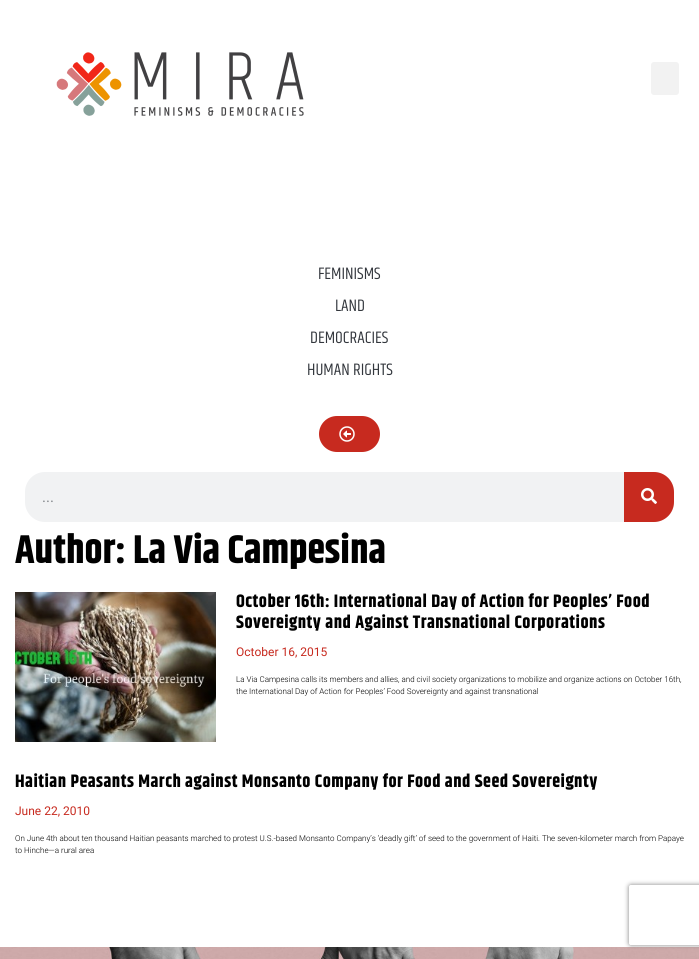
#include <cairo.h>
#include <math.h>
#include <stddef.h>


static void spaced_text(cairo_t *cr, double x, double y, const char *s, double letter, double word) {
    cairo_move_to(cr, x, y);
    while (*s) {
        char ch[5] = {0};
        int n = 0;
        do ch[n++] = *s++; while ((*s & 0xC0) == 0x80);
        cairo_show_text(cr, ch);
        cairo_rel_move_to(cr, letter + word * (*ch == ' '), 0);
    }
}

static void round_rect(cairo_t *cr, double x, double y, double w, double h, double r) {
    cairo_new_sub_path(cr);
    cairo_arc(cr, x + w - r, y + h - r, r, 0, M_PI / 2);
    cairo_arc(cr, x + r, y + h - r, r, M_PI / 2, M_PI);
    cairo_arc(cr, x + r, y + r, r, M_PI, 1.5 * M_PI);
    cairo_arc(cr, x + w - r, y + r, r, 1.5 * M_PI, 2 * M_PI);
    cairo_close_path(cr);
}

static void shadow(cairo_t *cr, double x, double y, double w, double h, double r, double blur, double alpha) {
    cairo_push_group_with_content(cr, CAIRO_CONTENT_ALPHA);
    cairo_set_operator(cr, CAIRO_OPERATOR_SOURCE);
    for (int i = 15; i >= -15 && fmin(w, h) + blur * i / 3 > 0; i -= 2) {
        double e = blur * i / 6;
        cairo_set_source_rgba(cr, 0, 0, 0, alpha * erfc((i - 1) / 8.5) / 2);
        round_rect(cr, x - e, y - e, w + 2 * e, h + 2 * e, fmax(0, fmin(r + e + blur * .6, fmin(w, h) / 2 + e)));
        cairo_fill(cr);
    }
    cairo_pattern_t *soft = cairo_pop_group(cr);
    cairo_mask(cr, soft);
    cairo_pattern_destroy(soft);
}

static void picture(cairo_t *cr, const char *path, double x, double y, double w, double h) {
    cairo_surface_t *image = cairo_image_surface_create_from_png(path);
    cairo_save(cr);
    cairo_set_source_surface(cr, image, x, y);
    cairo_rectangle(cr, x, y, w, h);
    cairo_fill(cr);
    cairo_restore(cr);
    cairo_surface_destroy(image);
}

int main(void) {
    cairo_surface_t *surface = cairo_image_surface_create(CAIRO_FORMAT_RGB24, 699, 959);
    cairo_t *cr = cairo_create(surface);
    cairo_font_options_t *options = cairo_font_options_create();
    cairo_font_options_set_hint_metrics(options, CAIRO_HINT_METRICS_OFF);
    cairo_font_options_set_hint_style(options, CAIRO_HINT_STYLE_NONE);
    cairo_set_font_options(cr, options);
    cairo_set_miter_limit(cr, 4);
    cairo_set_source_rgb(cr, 1, 1, 1);
    cairo_paint(cr);
    picture(cr, "img1.png", 56, 52, 248, 64);
    cairo_set_source_rgb(cr, 0.949, 0.949, 0.949);
    round_rect(cr, 651, 62, 28, 33, 3);
    cairo_fill(cr);
    cairo_select_font_face(cr, "Khand", CAIRO_FONT_SLANT_NORMAL, CAIRO_FONT_WEIGHT_NORMAL);
    cairo_set_font_size(cr, 17);
    cairo_set_source_rgb(cr, 0.2, 0.216, 0.239);
    cairo_move_to(cr, 318, 279);
    cairo_show_text(cr, "FEMINISMS");
    cairo_move_to(cr, 335, 311);
    cairo_show_text(cr, "LAND");
    cairo_move_to(cr, 310, 343);
    cairo_show_text(cr, "DEMOCRACIES");
    cairo_move_to(cr, 307, 375);
    cairo_show_text(cr, "HUMAN RIGHTS");
    cairo_set_source_rgb(cr, 0.78, 0.165, 0.122);
    round_rect(cr, 319, 416, 61, 36, 18);
    cairo_fill(cr);
    picture(cr, "img2.png", 339, 426, 16, 16);
    cairo_set_source_rgb(cr, 0.945, 0.949, 0.953);
    round_rect(cr, 25, 472, 649, 50, 20);
    cairo_fill(cr);
    cairo_select_font_face(cr, "Roboto", CAIRO_FONT_SLANT_NORMAL, CAIRO_FONT_WEIGHT_NORMAL);
    cairo_set_font_size(cr, 15);
    cairo_set_source_rgb(cr, 0.525, 0.541, 0.557);
    cairo_move_to(cr, 42, 502);
    cairo_show_text(cr, "...");
    cairo_set_source_rgb(cr, 0.78, 0.165, 0.122);
    cairo_new_path(cr);
    cairo_move_to(cr, 624, 472);
    cairo_line_to(cr, 654, 472);
    cairo_curve_to(cr, 665, 472, 674, 481, 674, 492);
    cairo_line_to(cr, 674, 502);
    cairo_curve_to(cr, 674, 513, 665, 522, 654, 522);
    cairo_line_to(cr, 624, 522);
    cairo_close_path(cr);
    cairo_fill(cr);
    picture(cr, "img3.png", 641, 488, 16, 16);
    cairo_select_font_face(cr, "Khand", CAIRO_FONT_SLANT_NORMAL, CAIRO_FONT_WEIGHT_BOLD);
    cairo_set_font_size(cr, 40);
    cairo_set_source_rgb(cr, 0, 0, 0);
    cairo_move_to(cr, 15, 563);
    cairo_show_text(cr, "Author: La Via Campesina");
    picture(cr, "img4.png", 15, 592, 201, 150);
    cairo_set_font_size(cr, 18);
    spaced_text(cr, 236, 607, "October 16th: International Day of Action for Peoples’ Food", 0.5, 0);
    spaced_text(cr, 236, 628, "Sovereignty and Against Transnational Corporations", 0.5, 0);
    cairo_select_font_face(cr, "Roboto", CAIRO_FONT_SLANT_NORMAL, CAIRO_FONT_WEIGHT_NORMAL);
    cairo_set_font_size(cr, 12);
    cairo_set_source_rgb(cr, 0.78, 0.165, 0.122);
    cairo_move_to(cr, 236, 656);
    cairo_show_text(cr, "October 16, 2015");
    cairo_select_font_face(cr, "Roboto Light", CAIRO_FONT_SLANT_NORMAL, CAIRO_FONT_WEIGHT_NORMAL);
    cairo_set_font_size(cr, 8);
    cairo_set_source_rgb(cr, 0, 0, 0);
    cairo_move_to(cr, 236, 682);
    cairo_show_text(cr, "La Via Campesina calls its members and allies, and civil society organizations to mobilize and organize actions on October 16th,");
    cairo_move_to(cr, 236, 694);
    cairo_show_text(cr, "the International Day of Action for Peoples’ Food Sovereignty and against transnational");
    cairo_select_font_face(cr, "Khand", CAIRO_FONT_SLANT_NORMAL, CAIRO_FONT_WEIGHT_BOLD);
    cairo_set_font_size(cr, 18);
    spaced_text(cr, 15, 787, "Haitian Peasants March against Monsanto Company for Food and Seed Sovereignty", 0.5, 0);
    cairo_select_font_face(cr, "Roboto", CAIRO_FONT_SLANT_NORMAL, CAIRO_FONT_WEIGHT_NORMAL);
    cairo_set_font_size(cr, 12);
    cairo_set_source_rgb(cr, 0.78, 0.165, 0.122);
    cairo_move_to(cr, 15, 815);
    cairo_show_text(cr, "June 22, 2010");
    cairo_select_font_face(cr, "Roboto Light", CAIRO_FONT_SLANT_NORMAL, CAIRO_FONT_WEIGHT_NORMAL);
    cairo_set_font_size(cr, 8);
    cairo_set_source_rgb(cr, 0, 0, 0);
    cairo_move_to(cr, 15, 841);
    cairo_show_text(cr, "On June 4th about ten thousand Haitian peasants marched to protest U.S.-based Monsanto Company’s ‘deadly gift’ of seed to the government of Haiti. The seven-kilometer march from Papaye");
    cairo_move_to(cr, 15, 853);
    cairo_show_text(cr, "to Hinche—a rural area");
    picture(cr, "img5.png", 0, 947, 699, 12);
    cairo_save(cr);
    cairo_set_fill_rule(cr, CAIRO_FILL_RULE_EVEN_ODD);
    cairo_new_path(cr);
    cairo_move_to(cr, 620, 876);
    cairo_line_to(cr, 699, 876);
    cairo_line_to(cr, 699, 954);
    cairo_line_to(cr, 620, 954);
    cairo_close_path(cr);
    cairo_move_to(cr, 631, 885);
    cairo_line_to(cr, 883, 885);
    cairo_curve_to(cr, 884, 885, 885, 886, 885, 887);
    cairo_line_to(cr, 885, 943);
    cairo_curve_to(cr, 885, 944, 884, 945, 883, 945);
    cairo_line_to(cr, 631, 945);
    cairo_curve_to(cr, 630, 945, 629, 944, 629, 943);
    cairo_line_to(cr, 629, 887);
    cairo_curve_to(cr, 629, 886, 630, 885, 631, 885);
    cairo_close_path(cr);
    cairo_clip(cr);
    cairo_set_source_rgb(cr, 0.502, 0.502, 0.502);
    shadow(cr, 629, 885, 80, 60, 2, 2.5, 1);
    cairo_restore(cr);
    cairo_surface_write_to_png(surface, "page.png");
    cairo_font_options_destroy(options);
    cairo_destroy(cr);
    cairo_surface_destroy(surface);
    return 0;
}
